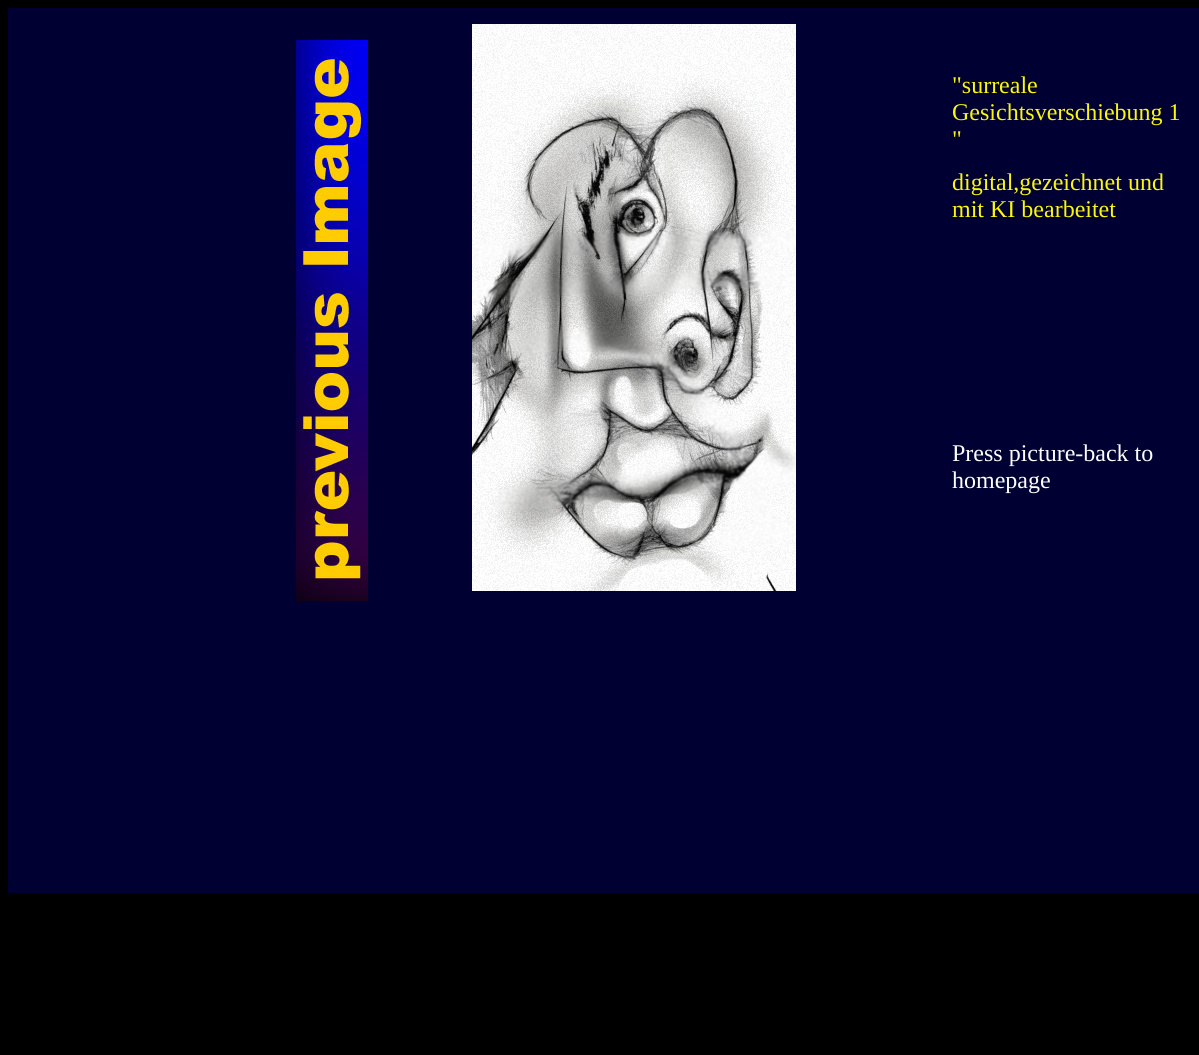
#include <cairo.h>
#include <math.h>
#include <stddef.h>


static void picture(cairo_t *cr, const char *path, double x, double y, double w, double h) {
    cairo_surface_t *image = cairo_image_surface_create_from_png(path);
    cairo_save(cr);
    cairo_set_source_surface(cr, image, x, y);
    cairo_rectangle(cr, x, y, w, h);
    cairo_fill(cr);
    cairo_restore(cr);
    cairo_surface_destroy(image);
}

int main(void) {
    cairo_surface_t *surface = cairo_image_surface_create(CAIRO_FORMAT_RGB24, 1199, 1055);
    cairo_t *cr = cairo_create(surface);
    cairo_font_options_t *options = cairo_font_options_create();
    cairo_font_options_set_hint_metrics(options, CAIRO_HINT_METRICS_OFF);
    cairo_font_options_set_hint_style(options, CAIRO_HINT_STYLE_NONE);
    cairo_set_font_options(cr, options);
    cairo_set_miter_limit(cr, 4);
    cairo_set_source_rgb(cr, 0, 0, 0);
    cairo_paint(cr);
    cairo_set_source_rgb(cr, 0, 0, 0.2);
    cairo_rectangle(cr, 8, 8, 1191, 885);
    cairo_fill(cr);
    picture(cr, "img1.png", 296, 40, 72, 561);
    picture(cr, "img2.png", 472, 24, 324, 567);
    cairo_select_font_face(cr, "Liberation Serif", CAIRO_FONT_SLANT_NORMAL, CAIRO_FONT_WEIGHT_NORMAL);
    cairo_set_font_size(cr, 24);
    cairo_set_source_rgb(cr, 0.98, 0.965, 0.047);
    cairo_move_to(cr, 952, 93);
    cairo_show_text(cr, "\"surreale");
    cairo_move_to(cr, 952, 120);
    cairo_show_text(cr, "Gesichtsverschiebung 1");
    cairo_move_to(cr, 952, 147);
    cairo_show_text(cr, "\"");
    cairo_move_to(cr, 952, 190);
    cairo_show_text(cr, "digital,gezeichnet und");
    cairo_move_to(cr, 952, 217);
    cairo_show_text(cr, "mit KI bearbeitet");
    cairo_set_source_rgb(cr, 0.992, 0.992, 0.992);
    cairo_move_to(cr, 952, 461);
    cairo_show_text(cr, "Press picture-back to");
    cairo_move_to(cr, 952, 488);
    cairo_show_text(cr, "homepage");
    cairo_surface_write_to_png(surface, "page.png");
    cairo_font_options_destroy(options);
    cairo_destroy(cr);
    cairo_surface_destroy(surface);
    return 0;
}
